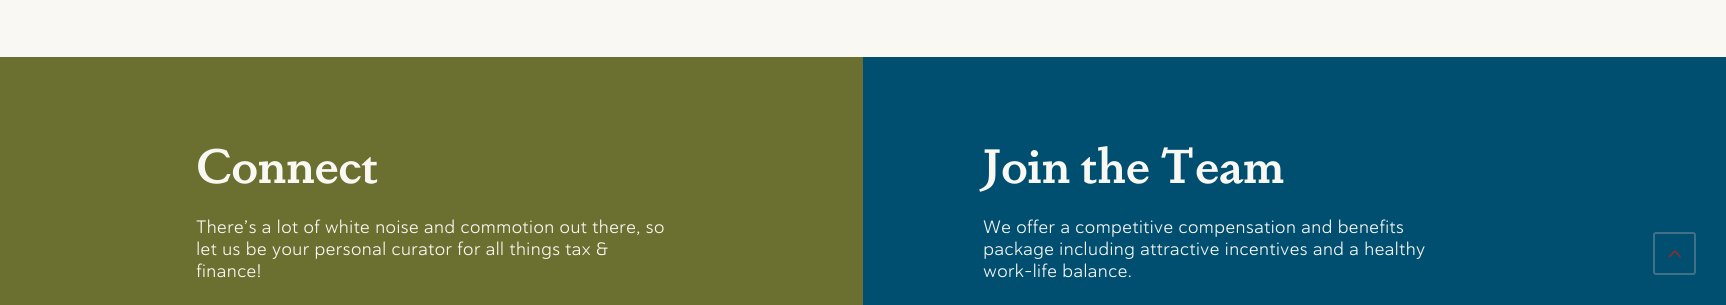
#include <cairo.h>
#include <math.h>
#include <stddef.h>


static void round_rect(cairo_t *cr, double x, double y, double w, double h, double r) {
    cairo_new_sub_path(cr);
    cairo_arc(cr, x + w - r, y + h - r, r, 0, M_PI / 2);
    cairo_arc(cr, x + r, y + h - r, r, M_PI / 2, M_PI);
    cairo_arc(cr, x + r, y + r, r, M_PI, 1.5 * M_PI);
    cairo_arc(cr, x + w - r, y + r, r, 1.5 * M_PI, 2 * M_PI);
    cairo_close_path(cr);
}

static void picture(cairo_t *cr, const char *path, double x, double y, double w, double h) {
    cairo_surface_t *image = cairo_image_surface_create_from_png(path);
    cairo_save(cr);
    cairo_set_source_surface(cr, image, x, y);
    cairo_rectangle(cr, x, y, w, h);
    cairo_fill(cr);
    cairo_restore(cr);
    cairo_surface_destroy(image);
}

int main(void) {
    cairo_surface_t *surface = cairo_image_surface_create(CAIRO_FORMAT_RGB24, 1726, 305);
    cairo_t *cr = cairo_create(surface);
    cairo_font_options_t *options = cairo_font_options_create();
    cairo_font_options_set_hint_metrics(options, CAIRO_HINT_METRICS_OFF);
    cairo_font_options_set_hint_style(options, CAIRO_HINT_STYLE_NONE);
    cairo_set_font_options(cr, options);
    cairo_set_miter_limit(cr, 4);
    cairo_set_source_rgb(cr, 0.973, 0.969, 0.953);
    cairo_paint(cr);
    cairo_set_source_rgb(cr, 0.42, 0.439, 0.192);
    cairo_rectangle(cr, 0, 57, 863, 248);
    cairo_fill(cr);
    cairo_select_font_face(cr, "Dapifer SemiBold", CAIRO_FONT_SLANT_NORMAL, CAIRO_FONT_WEIGHT_NORMAL);
    cairo_set_font_size(cr, 48);
    cairo_set_source_rgb(cr, 0.973, 0.969, 0.953);
    cairo_move_to(cr, 196, 183);
    cairo_show_text(cr, "Connect");
    cairo_select_font_face(cr, "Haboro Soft", CAIRO_FONT_SLANT_NORMAL, CAIRO_FONT_WEIGHT_NORMAL);
    cairo_set_font_size(cr, 18);
    cairo_move_to(cr, 196, 233);
    cairo_show_text(cr, "There’s a lot of white noise and commotion out there, so");
    cairo_move_to(cr, 196, 255);
    cairo_show_text(cr, "let us be your personal curator for all things tax &");
    cairo_move_to(cr, 196, 277);
    cairo_show_text(cr, "finance!");
    cairo_set_source_rgb(cr, 0, 0.31, 0.439);
    cairo_rectangle(cr, 863, 57, 863, 248);
    cairo_fill(cr);
    cairo_select_font_face(cr, "Dapifer SemiBold", CAIRO_FONT_SLANT_NORMAL, CAIRO_FONT_WEIGHT_NORMAL);
    cairo_set_font_size(cr, 48);
    cairo_set_source_rgb(cr, 0.973, 0.969, 0.953);
    cairo_move_to(cr, 983, 183);
    cairo_show_text(cr, "Join the Team");
    cairo_select_font_face(cr, "Haboro Soft", CAIRO_FONT_SLANT_NORMAL, CAIRO_FONT_WEIGHT_NORMAL);
    cairo_set_font_size(cr, 18);
    cairo_move_to(cr, 983, 233);
    cairo_show_text(cr, "We offer a competitive compensation and benefits");
    cairo_move_to(cr, 983, 255);
    cairo_show_text(cr, "package including attractive incentives and a healthy");
    cairo_move_to(cr, 983, 277);
    cairo_show_text(cr, "work-life balance.");
    round_rect(cr, 1654, 233, 41, 41, 2);
    cairo_set_source_rgb(cr, 0.259, 0.439, 0.529);
    cairo_stroke(cr);
    picture(cr, "img1.png", 1668, 250, 13, 8);
    cairo_surface_write_to_png(surface, "page.png");
    cairo_font_options_destroy(options);
    cairo_destroy(cr);
    cairo_surface_destroy(surface);
    return 0;
}
